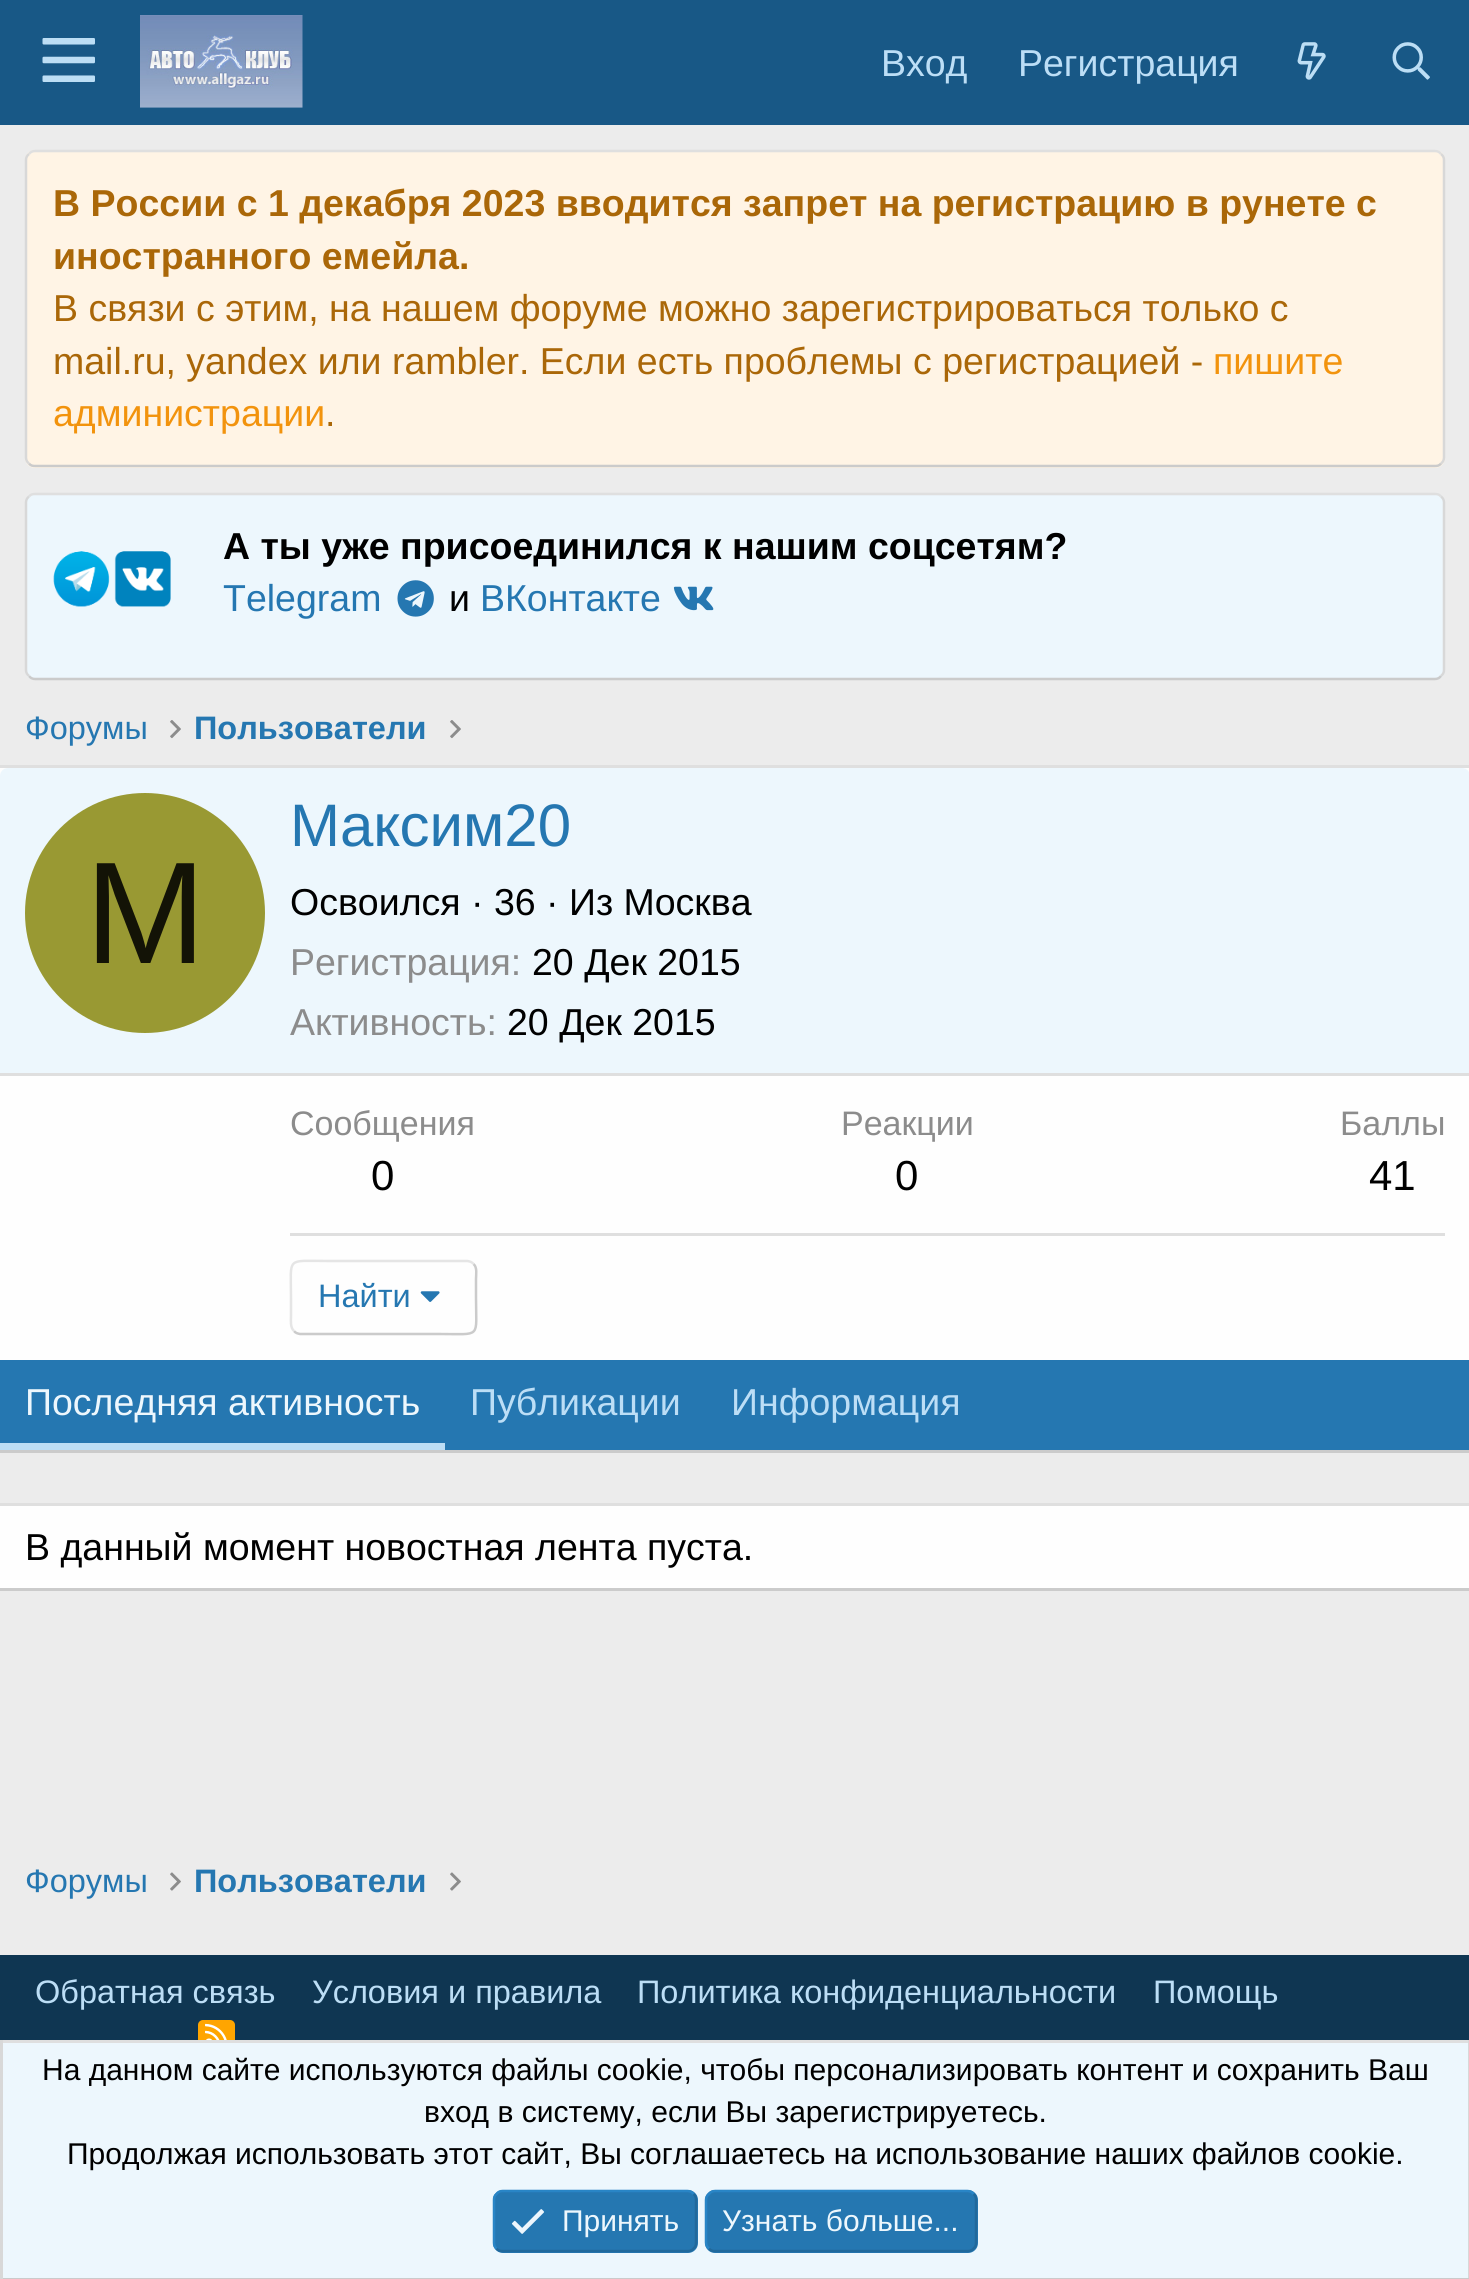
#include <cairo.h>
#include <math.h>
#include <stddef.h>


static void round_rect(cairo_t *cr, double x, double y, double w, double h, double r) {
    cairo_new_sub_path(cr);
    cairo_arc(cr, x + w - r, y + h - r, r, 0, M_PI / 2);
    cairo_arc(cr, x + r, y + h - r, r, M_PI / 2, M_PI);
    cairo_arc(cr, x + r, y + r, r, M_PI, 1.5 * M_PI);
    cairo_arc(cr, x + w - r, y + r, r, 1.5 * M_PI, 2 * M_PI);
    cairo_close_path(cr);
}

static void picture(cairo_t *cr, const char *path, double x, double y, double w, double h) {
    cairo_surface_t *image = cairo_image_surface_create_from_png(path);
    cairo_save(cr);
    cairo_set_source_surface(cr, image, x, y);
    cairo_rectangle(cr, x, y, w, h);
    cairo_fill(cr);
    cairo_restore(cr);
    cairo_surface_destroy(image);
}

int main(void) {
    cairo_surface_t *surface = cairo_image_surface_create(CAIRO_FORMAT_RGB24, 1469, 2279);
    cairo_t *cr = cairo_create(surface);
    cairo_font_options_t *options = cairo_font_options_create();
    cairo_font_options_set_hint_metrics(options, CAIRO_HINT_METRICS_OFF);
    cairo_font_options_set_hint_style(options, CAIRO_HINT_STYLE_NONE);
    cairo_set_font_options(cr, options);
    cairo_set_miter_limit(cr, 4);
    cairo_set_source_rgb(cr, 0.925, 0.925, 0.925);
    cairo_paint(cr);
    cairo_set_source_rgb(cr, 0.094, 0.345, 0.525);
    cairo_rectangle(cr, 0, 0, 1469, 125);
    cairo_fill(cr);
    picture(cr, "img1.png", 42, 38, 53, 44);
    picture(cr, "img2.png", 140, 15, 163, 93);
    cairo_select_font_face(cr, "Liberation Sans", CAIRO_FONT_SLANT_NORMAL, CAIRO_FONT_WEIGHT_NORMAL);
    cairo_set_font_size(cr, 37.5);
    cairo_set_source_rgb(cr, 0.737, 0.871, 0.961);
    cairo_move_to(cr, 881, 76);
    cairo_show_text(cr, "Вход");
    cairo_move_to(cr, 1018, 76);
    cairo_show_text(cr, "Регистрация");
    picture(cr, "img3.png", 1297, 42, 29, 38);
    picture(cr, "img4.png", 1392, 42, 38, 38);
    cairo_set_source_rgb(cr, 1, 0.957, 0.898);
    round_rect(cr, 25, 150, 1420, 318, 10);
    cairo_fill(cr);
    cairo_new_path(cr);
    cairo_move_to(cr, 29, 154);
    cairo_curve_to(cr, 30.5, 152, 32.5, 151, 35, 151);
    cairo_line_to(cr, 1435, 151);
    cairo_curve_to(cr, 1437.5, 151, 1439.5, 152, 1441, 154);
    cairo_set_source_rgb(cr, 0.875, 0.875, 0.875);
    cairo_set_line_width(cr, 2.5);
    cairo_stroke(cr);
    cairo_new_path(cr);
    cairo_move_to(cr, 1441, 154);
    cairo_curve_to(cr, 1443, 155.5, 1444, 157.5, 1444, 160);
    cairo_line_to(cr, 1444, 457.5);
    cairo_curve_to(cr, 1444, 460, 1443, 462, 1441, 463.5);
    cairo_set_source_rgb(cr, 0.847, 0.847, 0.847);
    cairo_stroke(cr);
    cairo_new_path(cr);
    cairo_move_to(cr, 1441, 463.5);
    cairo_curve_to(cr, 1439.5, 465.5, 1437.5, 466, 1435, 466);
    cairo_line_to(cr, 35, 466);
    cairo_curve_to(cr, 32.5, 466, 30.5, 465.5, 29, 463.5);
    cairo_set_source_rgb(cr, 0.796, 0.796, 0.796);
    cairo_stroke(cr);
    cairo_new_path(cr);
    cairo_move_to(cr, 29, 463.5);
    cairo_curve_to(cr, 27, 462, 26, 460, 26, 457.5);
    cairo_line_to(cr, 26, 160);
    cairo_curve_to(cr, 26, 157.5, 27, 155.5, 29, 154);
    cairo_set_source_rgb(cr, 0.847, 0.847, 0.847);
    cairo_stroke(cr);
    cairo_select_font_face(cr, "Liberation Sans", CAIRO_FONT_SLANT_NORMAL, CAIRO_FONT_WEIGHT_BOLD);
    cairo_set_source_rgb(cr, 0.667, 0.404, 0.035);
    cairo_move_to(cr, 53, 216);
    cairo_show_text(cr, "В России с 1 декабря 2023 вводится запрет на регистрацию в рунете с");
    cairo_move_to(cr, 53, 269);
    cairo_show_text(cr, "иностранного емейла.");
    cairo_select_font_face(cr, "Liberation Sans", CAIRO_FONT_SLANT_NORMAL, CAIRO_FONT_WEIGHT_NORMAL);
    cairo_move_to(cr, 53, 321);
    cairo_show_text(cr, "В связи с этим, на нашем форуме можно зарегистрироваться только с");
    cairo_move_to(cr, 53, 374);
    cairo_show_text(cr, "mail.ru, yandex или rambler. Если есть проблемы с регистрацией -");
    cairo_set_source_rgb(cr, 0.949, 0.576, 0.051);
    cairo_move_to(cr, 1213, 374);
    cairo_show_text(cr, "пишите");
    cairo_move_to(cr, 53, 426);
    cairo_show_text(cr, "администрации");
    cairo_set_source_rgb(cr, 0.667, 0.404, 0.035);
    cairo_move_to(cr, 325, 426);
    cairo_show_text(cr, ".");
    cairo_set_source_rgb(cr, 0.929, 0.965, 0.992);
    round_rect(cr, 25, 493, 1420, 187, 10);
    cairo_fill(cr);
    cairo_new_path(cr);
    cairo_move_to(cr, 29, 496.5);
    cairo_curve_to(cr, 30.5, 494.5, 32.5, 494, 35, 494);
    cairo_line_to(cr, 1435, 494);
    cairo_curve_to(cr, 1437.5, 494, 1439.5, 494.5, 1441, 496.5);
    cairo_set_source_rgb(cr, 0.875, 0.875, 0.875);
    cairo_stroke(cr);
    cairo_new_path(cr);
    cairo_move_to(cr, 1441, 496.5);
    cairo_curve_to(cr, 1443, 498, 1444, 500, 1444, 502.5);
    cairo_line_to(cr, 1444, 670);
    cairo_curve_to(cr, 1444, 672.5, 1443, 674.5, 1441, 676);
    cairo_set_source_rgb(cr, 0.847, 0.847, 0.847);
    cairo_stroke(cr);
    cairo_new_path(cr);
    cairo_move_to(cr, 1441, 676);
    cairo_curve_to(cr, 1439.5, 678, 1437.5, 679, 1435, 679);
    cairo_line_to(cr, 35, 679);
    cairo_curve_to(cr, 32.5, 679, 30.5, 678, 29, 676);
    cairo_set_source_rgb(cr, 0.796, 0.796, 0.796);
    cairo_stroke(cr);
    cairo_new_path(cr);
    cairo_move_to(cr, 29, 676);
    cairo_curve_to(cr, 27, 674.5, 26, 672.5, 26, 670);
    cairo_line_to(cr, 26, 502.5);
    cairo_curve_to(cr, 26, 500, 27, 498, 29, 496.5);
    cairo_set_source_rgb(cr, 0.847, 0.847, 0.847);
    cairo_stroke(cr);
    picture(cr, "img5.png", 53, 551, 118, 56);
    cairo_select_font_face(cr, "Liberation Sans", CAIRO_FONT_SLANT_NORMAL, CAIRO_FONT_WEIGHT_BOLD);
    cairo_set_source_rgb(cr, 0, 0, 0);
    cairo_move_to(cr, 223, 559);
    cairo_show_text(cr, "А ты уже присоединился к нашим соцсетям?");
    cairo_select_font_face(cr, "Liberation Sans", CAIRO_FONT_SLANT_NORMAL, CAIRO_FONT_WEIGHT_NORMAL);
    cairo_set_source_rgb(cr, 0.145, 0.467, 0.694);
    cairo_move_to(cr, 223, 611);
    cairo_show_text(cr, "Telegram");
    picture(cr, "img6.png", 397, 580, 37, 37);
    cairo_set_source_rgb(cr, 0, 0, 0);
    cairo_move_to(cr, 449, 611);
    cairo_show_text(cr, "и");
    cairo_set_source_rgb(cr, 0.145, 0.467, 0.694);
    cairo_move_to(cr, 480, 611);
    cairo_show_text(cr, "ВКонтакте");
    picture(cr, "img7.png", 673, 586, 41, 25);
    cairo_set_font_size(cr, 32.5);
    cairo_move_to(cr, 25, 739);
    cairo_show_text(cr, "Форумы");
    picture(cr, "img8.png", 170, 720, 11, 19);
    cairo_select_font_face(cr, "Liberation Sans", CAIRO_FONT_SLANT_NORMAL, CAIRO_FONT_WEIGHT_BOLD);
    cairo_move_to(cr, 194, 739);
    cairo_show_text(cr, "Пользователи");
    picture(cr, "img8.png", 450, 720, 11, 19);
    cairo_set_source_rgb(cr, 0.996, 0.996, 0.996);
    cairo_rectangle(cr, 0, 768, 1469, 592);
    cairo_fill(cr);
    cairo_set_source_rgb(cr, 0.875, 0.875, 0.875);
    cairo_rectangle(cr, 0, 765, 1469, 3);
    cairo_fill(cr);
    cairo_set_source_rgb(cr, 0.796, 0.796, 0.796);
    cairo_rectangle(cr, 0, 1450, 1469, 3);
    cairo_fill(cr);
    cairo_set_source_rgb(cr, 0.929, 0.965, 0.992);
    cairo_new_path(cr);
    cairo_move_to(cr, 8, 768);
    cairo_line_to(cr, 1462, 768);
    cairo_curve_to(cr, 1466.5, 768, 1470, 771.5, 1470, 776);
    cairo_line_to(cr, 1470, 1075);
    cairo_line_to(cr, 0, 1075);
    cairo_line_to(cr, 0, 776);
    cairo_curve_to(cr, 0, 771.5, 3.5, 768, 8, 768);
    cairo_close_path(cr);
    cairo_fill(cr);
    cairo_set_source_rgb(cr, 0.875, 0.875, 0.875);
    cairo_rectangle(cr, 0, 1073, 1469, 3);
    cairo_fill(cr);
    cairo_set_source_rgb(cr, 0.6, 0.6, 0.2);
    cairo_arc(cr, 145, 913, 120, 0, 2 * M_PI);
    cairo_fill(cr);
    cairo_select_font_face(cr, "Liberation Sans", CAIRO_FONT_SLANT_NORMAL, CAIRO_FONT_WEIGHT_NORMAL);
    cairo_set_font_size(cr, 145);
    cairo_set_source_rgb(cr, 0.075, 0.075, 0.024);
    cairo_move_to(cr, 85, 963);
    cairo_show_text(cr, "М");
    cairo_set_font_size(cr, 60);
    cairo_set_source_rgb(cr, 0.145, 0.467, 0.694);
    cairo_move_to(cr, 290, 846);
    cairo_show_text(cr, "Максим20");
    cairo_set_font_size(cr, 37.5);
    cairo_set_source_rgb(cr, 0, 0, 0);
    cairo_move_to(cr, 290, 915);
    cairo_show_text(cr, "Освоился · 36 · Из Москва");
    cairo_set_source_rgb(cr, 0.549, 0.549, 0.549);
    cairo_move_to(cr, 290, 975);
    cairo_show_text(cr, "Регистрация:");
    cairo_set_source_rgb(cr, 0, 0, 0);
    cairo_move_to(cr, 532, 975);
    cairo_show_text(cr, "20 Дек 2015");
    cairo_set_source_rgb(cr, 0.549, 0.549, 0.549);
    cairo_move_to(cr, 290, 1035);
    cairo_show_text(cr, "Активность:");
    cairo_set_source_rgb(cr, 0, 0, 0);
    cairo_move_to(cr, 507, 1035);
    cairo_show_text(cr, "20 Дек 2015");
    cairo_set_font_size(cr, 34);
    cairo_set_source_rgb(cr, 0.549, 0.549, 0.549);
    cairo_move_to(cr, 290, 1135);
    cairo_show_text(cr, "Сообщения");
    cairo_set_font_size(cr, 42);
    cairo_set_source_rgb(cr, 0, 0, 0);
    cairo_move_to(cr, 371, 1190);
    cairo_show_text(cr, "0");
    cairo_set_font_size(cr, 34);
    cairo_set_source_rgb(cr, 0.549, 0.549, 0.549);
    cairo_move_to(cr, 841, 1135);
    cairo_show_text(cr, "Реакции");
    cairo_set_font_size(cr, 42);
    cairo_set_source_rgb(cr, 0, 0, 0);
    cairo_move_to(cr, 895, 1190);
    cairo_show_text(cr, "0");
    cairo_set_font_size(cr, 34);
    cairo_set_source_rgb(cr, 0.549, 0.549, 0.549);
    cairo_move_to(cr, 1340, 1135);
    cairo_show_text(cr, "Баллы");
    cairo_set_font_size(cr, 42);
    cairo_set_source_rgb(cr, 0, 0, 0);
    cairo_move_to(cr, 1369, 1190);
    cairo_show_text(cr, "41");
    cairo_set_source_rgb(cr, 0.875, 0.875, 0.875);
    cairo_rectangle(cr, 290, 1233, 1155, 3);
    cairo_fill(cr);
    cairo_new_path(cr);
    cairo_move_to(cr, 473.5, 1264);
    cairo_curve_to(cr, 477.5, 1267.5, 476, 1274.5, 476, 1279);
    cairo_line_to(cr, 476, 1297.5);
    cairo_curve_to(cr, 476, 1339, 482, 1334, 439.5, 1334);
    cairo_line_to(cr, 300, 1334);
    cairo_curve_to(cr, 297.5, 1333.5, 295.5, 1333, 294, 1331);
    cairo_set_source_rgb(cr, 0.796, 0.796, 0.796);
    cairo_stroke(cr);
    cairo_new_path(cr);
    cairo_move_to(cr, 294, 1331);
    cairo_curve_to(cr, 290, 1327.5, 291, 1320.5, 291, 1316);
    cairo_line_to(cr, 291, 1297.5);
    cairo_curve_to(cr, 291, 1256, 285.5, 1261, 328, 1261);
    cairo_line_to(cr, 467.5, 1261);
    cairo_curve_to(cr, 470, 1261.5, 472, 1262, 473.5, 1264);
    cairo_set_source_rgb(cr, 0.898, 0.898, 0.898);
    cairo_stroke(cr);
    cairo_set_font_size(cr, 32.5);
    cairo_set_source_rgb(cr, 0.145, 0.467, 0.694);
    cairo_move_to(cr, 318, 1307);
    cairo_show_text(cr, "Найти");
    picture(cr, "img9.png", 420, 1291, 20, 11);
    cairo_rectangle(cr, 0, 1360, 1469, 90);
    cairo_fill(cr);
    cairo_set_source_rgb(cr, 0.737, 0.871, 0.961);
    cairo_rectangle(cr, 0, 1443, 445, 7);
    cairo_fill(cr);
    cairo_set_font_size(cr, 37.5);
    cairo_set_source_rgb(cr, 0.929, 0.965, 0.992);
    cairo_move_to(cr, 25, 1415);
    cairo_show_text(cr, "Последняя активность");
    cairo_set_source_rgb(cr, 0.737, 0.871, 0.961);
    cairo_move_to(cr, 470, 1415);
    cairo_show_text(cr, "Публикации");
    cairo_move_to(cr, 731, 1415);
    cairo_show_text(cr, "Информация");
    cairo_set_source_rgb(cr, 0.996, 0.996, 0.996);
    cairo_rectangle(cr, 0, 1506, 1469, 82);
    cairo_fill(cr);
    cairo_set_source_rgb(cr, 0.875, 0.875, 0.875);
    cairo_rectangle(cr, 0, 1503, 1469, 3);
    cairo_fill(cr);
    cairo_set_source_rgb(cr, 0.796, 0.796, 0.796);
    cairo_rectangle(cr, 0, 1588, 1469, 3);
    cairo_fill(cr);
    cairo_set_source_rgb(cr, 0, 0, 0);
    cairo_move_to(cr, 25, 1560);
    cairo_show_text(cr, "В данный момент новостная лента пуста.");
    cairo_set_font_size(cr, 32.5);
    cairo_set_source_rgb(cr, 0.145, 0.467, 0.694);
    cairo_move_to(cr, 25, 1892);
    cairo_show_text(cr, "Форумы");
    picture(cr, "img10.png", 170, 1872, 11, 19);
    cairo_select_font_face(cr, "Liberation Sans", CAIRO_FONT_SLANT_NORMAL, CAIRO_FONT_WEIGHT_BOLD);
    cairo_move_to(cr, 194, 1892);
    cairo_show_text(cr, "Пользователи");
    picture(cr, "img10.png", 450, 1872, 11, 19);
    cairo_set_source_rgb(cr, 0.059, 0.212, 0.322);
    cairo_rectangle(cr, 0, 1955, 1469, 85);
    cairo_fill(cr);
    cairo_select_font_face(cr, "Liberation Sans", CAIRO_FONT_SLANT_NORMAL, CAIRO_FONT_WEIGHT_NORMAL);
    cairo_set_source_rgb(cr, 0.737, 0.871, 0.961);
    cairo_move_to(cr, 35, 2003);
    cairo_show_text(cr, "Обратная связь");
    cairo_move_to(cr, 312, 2003);
    cairo_show_text(cr, "Условия и правила");
    cairo_move_to(cr, 637, 2003);
    cairo_show_text(cr, "Политика конфиденциальности");
    cairo_move_to(cr, 1153, 2003);
    cairo_show_text(cr, "Помощь");
    cairo_set_source_rgb(cr, 1, 0.647, 0);
    round_rect(cr, 198, 2020, 37, 38, 5);
    cairo_fill(cr);
    picture(cr, "img11.png", 205, 2023, 22, 17);
    cairo_set_source_rgb(cr, 0.929, 0.965, 0.992);
    cairo_rectangle(cr, 3, 2043, 1465, 235);
    cairo_fill(cr);
    cairo_set_source_rgb(cr, 0.875, 0.875, 0.875);
    cairo_rectangle(cr, 0, 2040, 1469, 3);
    cairo_fill(cr);
    cairo_set_source_rgb(cr, 0.847, 0.847, 0.847);
    cairo_rectangle(cr, 1468, 2040, 1, 239);
    cairo_fill(cr);
    cairo_set_source_rgb(cr, 0.796, 0.796, 0.796);
    cairo_rectangle(cr, 0, 2278, 1469, 1);
    cairo_fill(cr);
    cairo_set_source_rgb(cr, 0.847, 0.847, 0.847);
    cairo_rectangle(cr, 0, 2040, 3, 239);
    cairo_fill(cr);
    cairo_set_font_size(cr, 30);
    cairo_set_source_rgb(cr, 0, 0, 0);
    cairo_move_to(cr, 42, 2080);
    cairo_show_text(cr, "На данном сайте используются файлы cookie, чтобы персонализировать контент и сохранить Ваш");
    cairo_move_to(cr, 424, 2122);
    cairo_show_text(cr, "вход в систему, если Вы зарегистрируетесь.");
    cairo_move_to(cr, 67, 2164);
    cairo_show_text(cr, "Продолжая использовать этот сайт, Вы соглашаетесь на использование наших файлов cookie.");
    cairo_set_source_rgb(cr, 0.145, 0.467, 0.694);
    round_rect(cr, 493, 2190, 205, 63, 10);
    cairo_fill(cr);
    cairo_new_path(cr);
    cairo_move_to(cr, 693.5, 2194);
    cairo_curve_to(cr, 695.5, 2195.5, 696, 2197.5, 696, 2200);
    cairo_line_to(cr, 696, 2242.5);
    cairo_curve_to(cr, 696, 2245, 695.5, 2247, 693.5, 2248.5);
    cairo_curve_to(cr, 692, 2250.5, 690, 2251, 687.5, 2251);
    cairo_line_to(cr, 502.5, 2251);
    cairo_curve_to(cr, 500, 2251, 498, 2250.5, 496.5, 2248.5);
    cairo_set_source_rgb(cr, 0.129, 0.412, 0.612);
    cairo_stroke(cr);
    cairo_new_path(cr);
    cairo_move_to(cr, 496.5, 2248.5);
    cairo_curve_to(cr, 494.5, 2247, 494, 2245, 494, 2242.5);
    cairo_line_to(cr, 494, 2200);
    cairo_curve_to(cr, 494, 2197.5, 494.5, 2195.5, 496.5, 2194);
    cairo_curve_to(cr, 498, 2192, 500, 2191, 502.5, 2191);
    cairo_line_to(cr, 687.5, 2191);
    cairo_curve_to(cr, 690, 2191, 692, 2192, 693.5, 2194);
    cairo_set_source_rgb(cr, 0.161, 0.522, 0.776);
    cairo_stroke(cr);
    picture(cr, "img12.png", 511, 2209, 34, 25);
    cairo_set_source_rgb(cr, 0.929, 0.965, 0.992);
    cairo_move_to(cr, 562, 2231);
    cairo_show_text(cr, "Принять");
    cairo_set_source_rgb(cr, 0.145, 0.467, 0.694);
    round_rect(cr, 705, 2190, 273, 63, 10);
    cairo_fill(cr);
    cairo_new_path(cr);
    cairo_move_to(cr, 973.5, 2194);
    cairo_curve_to(cr, 975.5, 2195.5, 976, 2197.5, 976, 2200);
    cairo_line_to(cr, 976, 2242.5);
    cairo_curve_to(cr, 976, 2245, 975.5, 2247, 973.5, 2248.5);
    cairo_curve_to(cr, 972, 2250.5, 970, 2251, 967.5, 2251);
    cairo_line_to(cr, 715, 2251);
    cairo_curve_to(cr, 712.5, 2251, 710.5, 2250.5, 709, 2248.5);
    cairo_set_source_rgb(cr, 0.129, 0.412, 0.612);
    cairo_stroke(cr);
    cairo_new_path(cr);
    cairo_move_to(cr, 709, 2248.5);
    cairo_curve_to(cr, 707, 2247, 706, 2245, 706, 2242.5);
    cairo_line_to(cr, 706, 2200);
    cairo_curve_to(cr, 706, 2197.5, 707, 2195.5, 709, 2194);
    cairo_curve_to(cr, 710.5, 2192, 712.5, 2191, 715, 2191);
    cairo_line_to(cr, 967.5, 2191);
    cairo_curve_to(cr, 970, 2191, 972, 2192, 973.5, 2194);
    cairo_set_source_rgb(cr, 0.161, 0.522, 0.776);
    cairo_stroke(cr);
    cairo_set_source_rgb(cr, 0.929, 0.965, 0.992);
    cairo_move_to(cr, 722, 2231);
    cairo_show_text(cr, "Узнать больше...");
    cairo_surface_write_to_png(surface, "page.png");
    cairo_font_options_destroy(options);
    cairo_destroy(cr);
    cairo_surface_destroy(surface);
    return 0;
}
